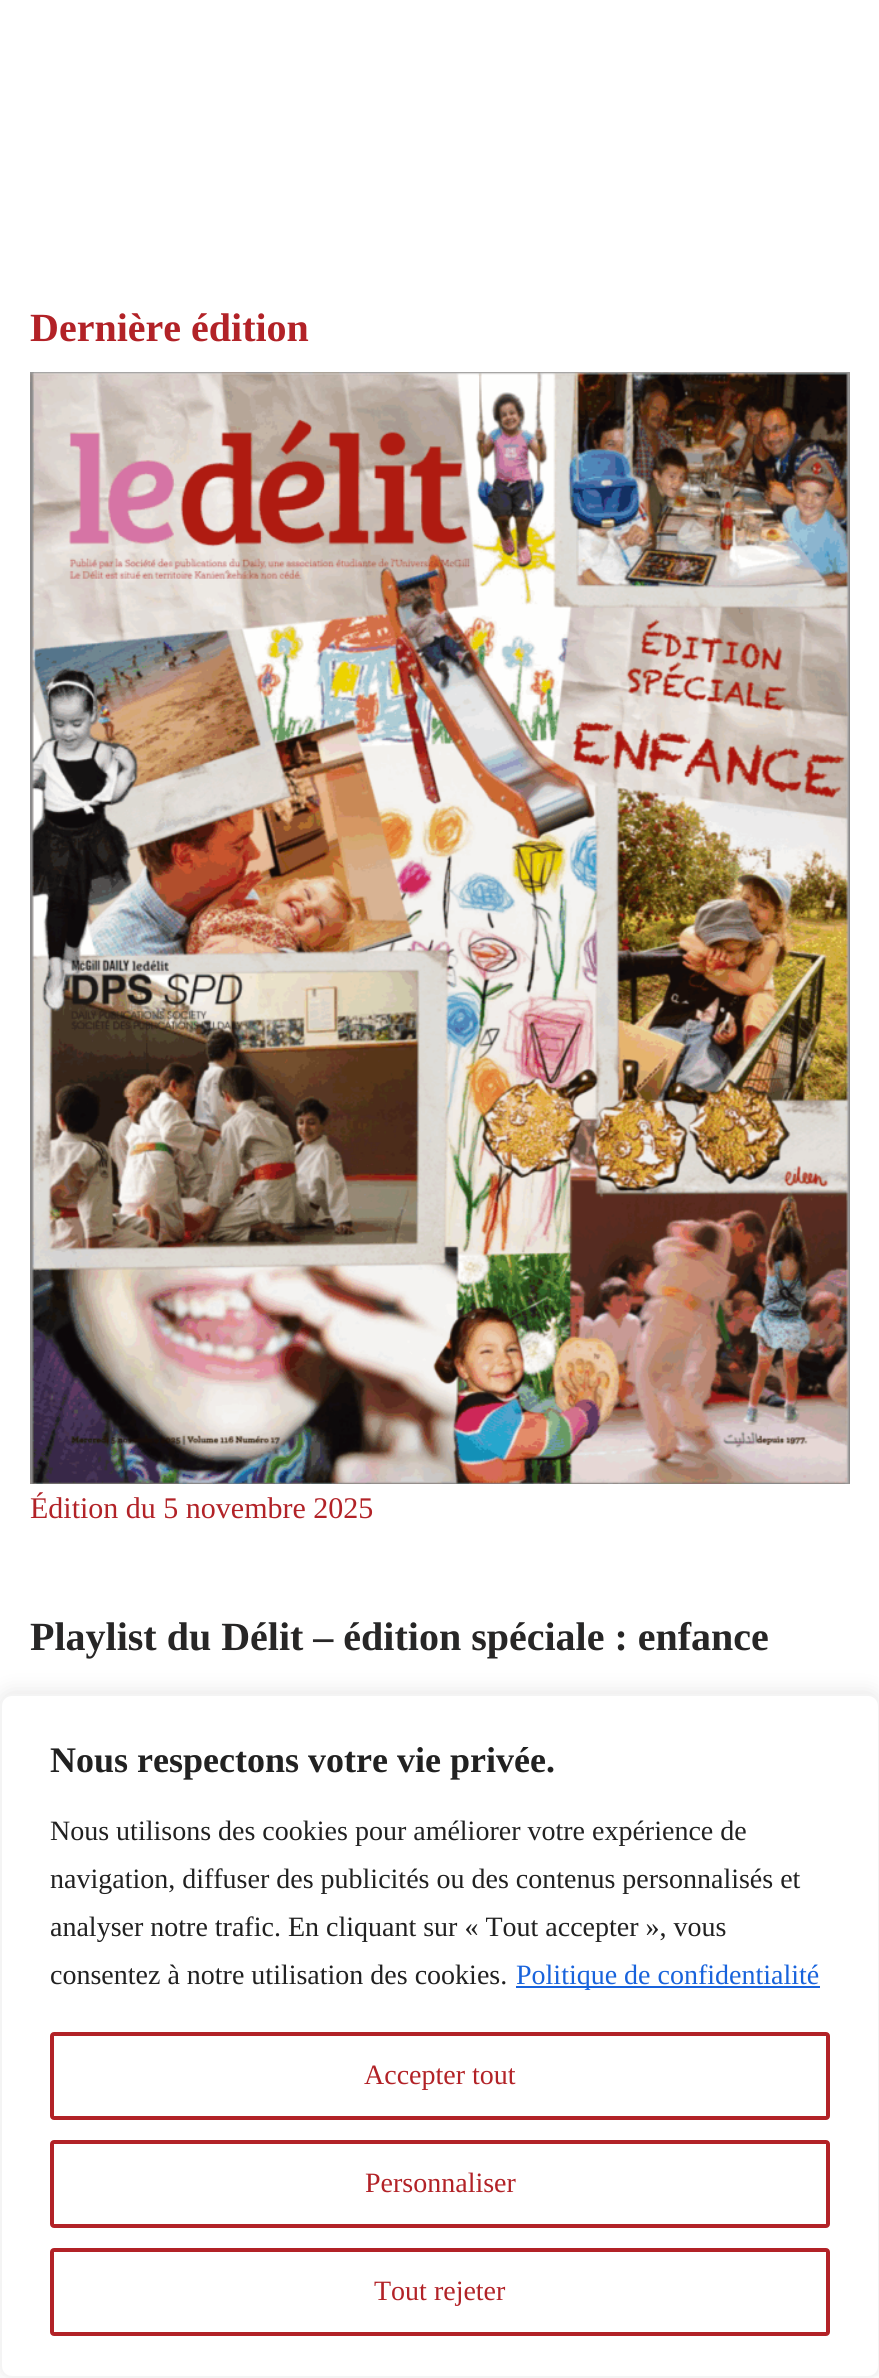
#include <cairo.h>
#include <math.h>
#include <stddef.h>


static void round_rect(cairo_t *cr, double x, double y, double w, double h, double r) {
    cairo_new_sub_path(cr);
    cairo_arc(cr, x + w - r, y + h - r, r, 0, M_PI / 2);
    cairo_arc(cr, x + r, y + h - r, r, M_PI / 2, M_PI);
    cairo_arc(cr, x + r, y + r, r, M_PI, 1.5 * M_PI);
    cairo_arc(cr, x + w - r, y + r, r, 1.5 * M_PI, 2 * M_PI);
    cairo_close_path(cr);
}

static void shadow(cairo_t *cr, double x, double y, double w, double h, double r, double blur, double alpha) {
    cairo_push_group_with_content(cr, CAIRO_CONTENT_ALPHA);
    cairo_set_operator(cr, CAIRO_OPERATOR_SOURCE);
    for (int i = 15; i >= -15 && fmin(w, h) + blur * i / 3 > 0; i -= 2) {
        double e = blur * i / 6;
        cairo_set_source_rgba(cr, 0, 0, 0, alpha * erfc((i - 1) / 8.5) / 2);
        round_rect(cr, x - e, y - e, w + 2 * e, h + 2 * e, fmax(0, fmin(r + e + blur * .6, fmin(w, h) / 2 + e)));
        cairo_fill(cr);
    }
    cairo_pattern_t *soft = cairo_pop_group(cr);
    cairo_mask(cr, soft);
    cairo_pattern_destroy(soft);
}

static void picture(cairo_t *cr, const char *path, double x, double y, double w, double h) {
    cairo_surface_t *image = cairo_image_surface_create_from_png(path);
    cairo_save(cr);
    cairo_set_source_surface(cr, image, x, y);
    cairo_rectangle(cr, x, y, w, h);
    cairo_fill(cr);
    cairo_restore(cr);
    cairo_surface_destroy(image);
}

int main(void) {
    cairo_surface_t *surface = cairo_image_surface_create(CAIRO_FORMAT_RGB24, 879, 2378);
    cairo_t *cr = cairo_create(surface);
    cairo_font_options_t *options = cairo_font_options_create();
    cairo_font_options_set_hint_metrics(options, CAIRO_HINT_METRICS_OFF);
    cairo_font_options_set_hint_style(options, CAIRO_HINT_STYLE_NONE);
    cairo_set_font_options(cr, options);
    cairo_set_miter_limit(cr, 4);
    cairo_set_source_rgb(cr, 1, 1, 1);
    cairo_paint(cr);
    cairo_select_font_face(cr, "Liberation Serif", CAIRO_FONT_SLANT_NORMAL, CAIRO_FONT_WEIGHT_BOLD);
    cairo_set_font_size(cr, 40);
    cairo_set_source_rgb(cr, 0.698, 0.133, 0.153);
    cairo_move_to(cr, 30, 341);
    cairo_show_text(cr, "Dernière édition");
    picture(cr, "img1.png", 30, 372, 820, 1112);
    cairo_select_font_face(cr, "Liberation Serif", CAIRO_FONT_SLANT_NORMAL, CAIRO_FONT_WEIGHT_NORMAL);
    cairo_set_font_size(cr, 30);
    cairo_move_to(cr, 30, 1518);
    cairo_show_text(cr, "Édition du 5 novembre 2025");
    cairo_select_font_face(cr, "Liberation Serif", CAIRO_FONT_SLANT_NORMAL, CAIRO_FONT_WEIGHT_BOLD);
    cairo_set_font_size(cr, 40);
    cairo_set_source_rgb(cr, 0.153, 0.149, 0.149);
    cairo_move_to(cr, 30, 1650);
    cairo_show_text(cr, "Playlist du Délit – édition spéciale : enfance");
    cairo_set_source_rgb(cr, 0.675, 0.671, 0.671);
    shadow(cr, 0, 1692, 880, 684, 12, 10, 0.3);
    cairo_set_source_rgb(cr, 1, 1, 1);
    round_rect(cr, 1, 1695, 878, 682, 11);
    cairo_fill_preserve(cr);
    cairo_set_source_rgb(cr, 0.957, 0.957, 0.957);
    cairo_stroke(cr);
    cairo_set_font_size(cr, 36);
    cairo_set_source_rgb(cr, 0.129, 0.129, 0.129);
    cairo_move_to(cr, 50, 1772);
    cairo_show_text(cr, "Nous respectons votre vie privée.");
    cairo_select_font_face(cr, "Liberation Serif", CAIRO_FONT_SLANT_NORMAL, CAIRO_FONT_WEIGHT_NORMAL);
    cairo_set_font_size(cr, 28);
    cairo_move_to(cr, 50, 1840);
    cairo_show_text(cr, "Nous utilisons des cookies pour améliorer votre expérience de");
    cairo_move_to(cr, 50, 1888);
    cairo_show_text(cr, "navigation, diffuser des publicités ou des contenus personnalisés et");
    cairo_move_to(cr, 50, 1936);
    cairo_show_text(cr, "analyser notre trafic. En cliquant sur « Tout accepter », vous");
    cairo_move_to(cr, 50, 1984);
    cairo_show_text(cr, "consentez à notre utilisation des cookies.");
    cairo_set_source_rgb(cr, 0.094, 0.388, 0.863);
    cairo_rectangle(cr, 516, 1986, 304, 2);
    cairo_fill(cr);
    cairo_move_to(cr, 516, 1984);
    cairo_show_text(cr, "Politique de confidentialité");
    round_rect(cr, 52, 2034, 776, 84, 2);
    cairo_set_source_rgb(cr, 0.698, 0.133, 0.153);
    cairo_set_line_width(cr, 4);
    cairo_stroke(cr);
    cairo_move_to(cr, 364, 2084);
    cairo_show_text(cr, "Accepter tout");
    round_rect(cr, 52, 2142, 776, 84, 2);
    cairo_stroke(cr);
    cairo_move_to(cr, 365, 2192);
    cairo_show_text(cr, "Personnaliser");
    round_rect(cr, 52, 2250, 776, 84, 2);
    cairo_stroke(cr);
    cairo_move_to(cr, 374, 2300);
    cairo_show_text(cr, "Tout rejeter");
    cairo_surface_write_to_png(surface, "page.png");
    cairo_font_options_destroy(options);
    cairo_destroy(cr);
    cairo_surface_destroy(surface);
    return 0;
}
